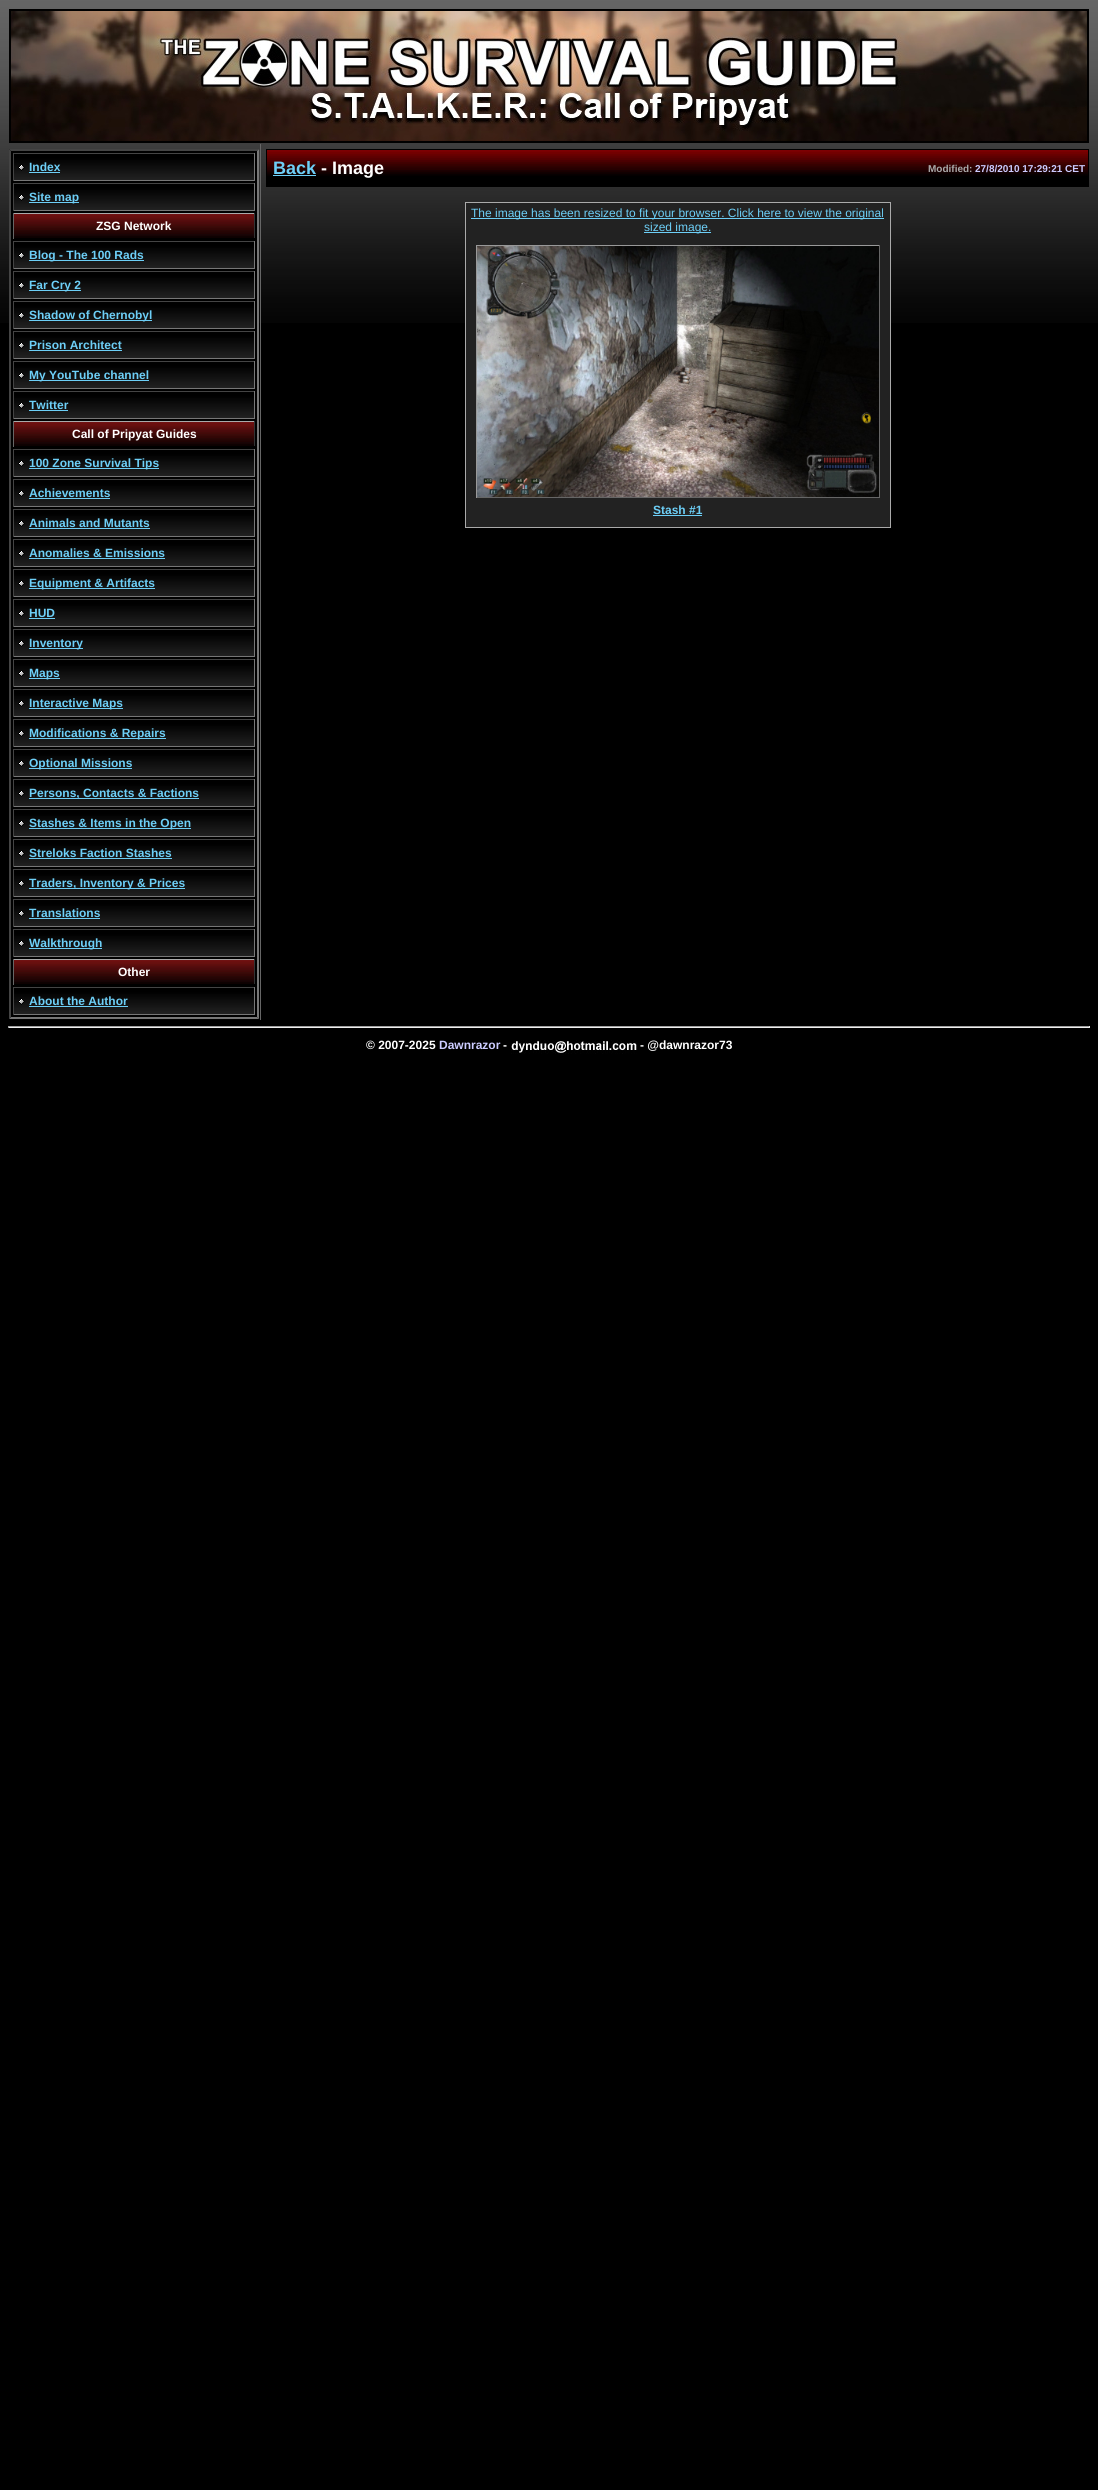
#include <cairo.h>
#include <math.h>
#include <stddef.h>


static void picture(cairo_t *cr, const char *path, double x, double y, double w, double h) {
    cairo_surface_t *image = cairo_image_surface_create_from_png(path);
    cairo_save(cr);
    cairo_set_source_surface(cr, image, x, y);
    cairo_rectangle(cr, x, y, w, h);
    cairo_fill(cr);
    cairo_restore(cr);
    cairo_surface_destroy(image);
}

int main(void) {
    cairo_surface_t *surface = cairo_image_surface_create(CAIRO_FORMAT_RGB24, 1098, 2490);
    cairo_t *cr = cairo_create(surface);
    cairo_font_options_t *options = cairo_font_options_create();
    cairo_font_options_set_hint_metrics(options, CAIRO_HINT_METRICS_OFF);
    cairo_font_options_set_hint_style(options, CAIRO_HINT_STYLE_NONE);
    cairo_set_font_options(cr, options);
    cairo_set_miter_limit(cr, 4);
    cairo_set_source_rgb(cr, 0, 0, 0);
    cairo_paint(cr);
    picture(cr, "img1.png", 0, 0, 1098, 323);
    cairo_rectangle(cr, 10, 10, 1078, 132);
    cairo_set_source_rgb(cr, 0, 0, 0);
    cairo_stroke(cr);
    picture(cr, "img2.png", 11, 11, 1076, 130);
    cairo_rectangle(cr, 9, 149, 250, 174);
    cairo_fill(cr);
    cairo_set_source_rgb(cr, 0.267, 0.267, 0.267);
    cairo_new_path(cr);
    cairo_move_to(cr, 9, 149);
    cairo_line_to(cr, 259, 149);
    cairo_line_to(cr, 257, 151);
    cairo_line_to(cr, 11, 151);
    cairo_close_path(cr);
    cairo_fill(cr);
    cairo_set_source_rgb(cr, 0.467, 0.467, 0.467);
    cairo_new_path(cr);
    cairo_move_to(cr, 259, 149);
    cairo_line_to(cr, 259, 1019);
    cairo_line_to(cr, 257, 1017);
    cairo_line_to(cr, 257, 151);
    cairo_close_path(cr);
    cairo_fill(cr);
    cairo_new_path(cr);
    cairo_move_to(cr, 259, 1019);
    cairo_line_to(cr, 9, 1019);
    cairo_line_to(cr, 11, 1017);
    cairo_line_to(cr, 257, 1017);
    cairo_close_path(cr);
    cairo_fill(cr);
    cairo_set_source_rgb(cr, 0.267, 0.267, 0.267);
    cairo_new_path(cr);
    cairo_move_to(cr, 9, 1019);
    cairo_line_to(cr, 9, 149);
    cairo_line_to(cr, 11, 151);
    cairo_line_to(cr, 11, 1017);
    cairo_close_path(cr);
    cairo_fill(cr);
    picture(cr, "img3.png", 14, 154, 240, 26);
    cairo_rectangle(cr, 13, 153, 242, 1);
    cairo_fill(cr);
    cairo_set_source_rgb(cr, 0.467, 0.467, 0.467);
    cairo_rectangle(cr, 254, 153, 1, 28);
    cairo_fill(cr);
    cairo_rectangle(cr, 13, 180, 242, 1);
    cairo_fill(cr);
    cairo_set_source_rgb(cr, 0.267, 0.267, 0.267);
    cairo_rectangle(cr, 13, 153, 1, 28);
    cairo_fill(cr);
    picture(cr, "img4.png", 18, 164, 7, 7);
    cairo_select_font_face(cr, "Liberation Sans", CAIRO_FONT_SLANT_NORMAL, CAIRO_FONT_WEIGHT_BOLD);
    cairo_set_font_size(cr, 12);
    cairo_set_source_rgb(cr, 0.427, 0.812, 0.965);
    cairo_move_to(cr, 29, 171);
    cairo_show_text(cr, "Index");
    cairo_rectangle(cr, 29, 172, 31, 1);
    cairo_fill(cr);
    picture(cr, "img3.png", 14, 184, 240, 26);
    cairo_set_source_rgb(cr, 0.267, 0.267, 0.267);
    cairo_rectangle(cr, 13, 183, 242, 1);
    cairo_fill(cr);
    cairo_set_source_rgb(cr, 0.467, 0.467, 0.467);
    cairo_rectangle(cr, 254, 183, 1, 28);
    cairo_fill(cr);
    cairo_rectangle(cr, 13, 210, 242, 1);
    cairo_fill(cr);
    cairo_set_source_rgb(cr, 0.267, 0.267, 0.267);
    cairo_rectangle(cr, 13, 183, 1, 28);
    cairo_fill(cr);
    picture(cr, "img4.png", 18, 194, 7, 7);
    cairo_set_source_rgb(cr, 0.427, 0.812, 0.965);
    cairo_rectangle(cr, 29, 202, 50, 1);
    cairo_fill(cr);
    cairo_move_to(cr, 29, 201);
    cairo_show_text(cr, "Site map");
    picture(cr, "img5.png", 14, 214, 240, 24);
    cairo_set_source_rgb(cr, 0.667, 0.667, 0.667);
    cairo_rectangle(cr, 13, 213, 242, 1);
    cairo_fill(cr);
    cairo_set_source_rgb(cr, 0.2, 0.2, 0.2);
    cairo_rectangle(cr, 254, 213, 1, 26);
    cairo_fill(cr);
    cairo_set_source_rgb(cr, 0, 0, 0);
    cairo_rectangle(cr, 254, 238, 1, 1);
    cairo_fill(cr);
    cairo_set_source_rgb(cr, 0.4, 0.4, 0.4);
    cairo_rectangle(cr, 13, 213, 1, 26);
    cairo_fill(cr);
    cairo_set_source_rgb(cr, 1, 1, 1);
    cairo_move_to(cr, 96, 230);
    cairo_show_text(cr, "ZSG Network");
    picture(cr, "img3.png", 14, 242, 240, 26);
    cairo_set_source_rgb(cr, 0.267, 0.267, 0.267);
    cairo_rectangle(cr, 13, 241, 242, 1);
    cairo_fill(cr);
    cairo_set_source_rgb(cr, 0.467, 0.467, 0.467);
    cairo_rectangle(cr, 254, 241, 1, 28);
    cairo_fill(cr);
    cairo_rectangle(cr, 13, 268, 242, 1);
    cairo_fill(cr);
    cairo_set_source_rgb(cr, 0.267, 0.267, 0.267);
    cairo_rectangle(cr, 13, 241, 1, 28);
    cairo_fill(cr);
    picture(cr, "img4.png", 18, 252, 7, 7);
    cairo_set_source_rgb(cr, 0.427, 0.812, 0.965);
    cairo_rectangle(cr, 29, 260, 115, 1);
    cairo_fill(cr);
    cairo_move_to(cr, 29, 259);
    cairo_show_text(cr, "Blog - The 100 Rads");
    picture(cr, "img3.png", 14, 272, 240, 26);
    cairo_set_source_rgb(cr, 0.267, 0.267, 0.267);
    cairo_rectangle(cr, 13, 271, 242, 1);
    cairo_fill(cr);
    cairo_set_source_rgb(cr, 0.467, 0.467, 0.467);
    cairo_rectangle(cr, 254, 271, 1, 28);
    cairo_fill(cr);
    cairo_rectangle(cr, 13, 298, 242, 1);
    cairo_fill(cr);
    cairo_set_source_rgb(cr, 0.267, 0.267, 0.267);
    cairo_rectangle(cr, 13, 271, 1, 28);
    cairo_fill(cr);
    picture(cr, "img4.png", 18, 282, 7, 7);
    cairo_set_source_rgb(cr, 0.427, 0.812, 0.965);
    cairo_rectangle(cr, 29, 290, 52, 1);
    cairo_fill(cr);
    cairo_move_to(cr, 29, 289);
    cairo_show_text(cr, "Far Cry 2");
    picture(cr, "img3.png", 14, 302, 240, 26);
    cairo_set_source_rgb(cr, 0.267, 0.267, 0.267);
    cairo_rectangle(cr, 13, 301, 242, 1);
    cairo_fill(cr);
    cairo_set_source_rgb(cr, 0.467, 0.467, 0.467);
    cairo_rectangle(cr, 254, 301, 1, 28);
    cairo_fill(cr);
    cairo_rectangle(cr, 13, 328, 242, 1);
    cairo_fill(cr);
    cairo_set_source_rgb(cr, 0.267, 0.267, 0.267);
    cairo_rectangle(cr, 13, 301, 1, 28);
    cairo_fill(cr);
    picture(cr, "img4.png", 18, 312, 7, 7);
    cairo_set_source_rgb(cr, 0.427, 0.812, 0.965);
    cairo_rectangle(cr, 29, 320, 123, 1);
    cairo_fill(cr);
    cairo_move_to(cr, 29, 319);
    cairo_show_text(cr, "Shadow of Chernobyl");
    picture(cr, "img3.png", 14, 332, 240, 26);
    cairo_set_source_rgb(cr, 0.267, 0.267, 0.267);
    cairo_rectangle(cr, 13, 331, 242, 1);
    cairo_fill(cr);
    cairo_set_source_rgb(cr, 0.467, 0.467, 0.467);
    cairo_rectangle(cr, 254, 331, 1, 28);
    cairo_fill(cr);
    cairo_rectangle(cr, 13, 358, 242, 1);
    cairo_fill(cr);
    cairo_set_source_rgb(cr, 0.267, 0.267, 0.267);
    cairo_rectangle(cr, 13, 331, 1, 28);
    cairo_fill(cr);
    picture(cr, "img4.png", 18, 342, 7, 7);
    cairo_set_source_rgb(cr, 0.427, 0.812, 0.965);
    cairo_move_to(cr, 29, 349);
    cairo_show_text(cr, "Prison Architect");
    cairo_rectangle(cr, 29, 350, 93, 1);
    cairo_fill(cr);
    picture(cr, "img3.png", 14, 362, 240, 26);
    cairo_set_source_rgb(cr, 0.267, 0.267, 0.267);
    cairo_rectangle(cr, 13, 361, 242, 1);
    cairo_fill(cr);
    cairo_set_source_rgb(cr, 0.467, 0.467, 0.467);
    cairo_rectangle(cr, 254, 361, 1, 28);
    cairo_fill(cr);
    cairo_rectangle(cr, 13, 388, 242, 1);
    cairo_fill(cr);
    cairo_set_source_rgb(cr, 0.267, 0.267, 0.267);
    cairo_rectangle(cr, 13, 361, 1, 28);
    cairo_fill(cr);
    picture(cr, "img4.png", 18, 372, 7, 7);
    cairo_set_source_rgb(cr, 0.427, 0.812, 0.965);
    cairo_rectangle(cr, 29, 380, 120, 1);
    cairo_fill(cr);
    cairo_move_to(cr, 29, 379);
    cairo_show_text(cr, "My YouTube channel");
    picture(cr, "img3.png", 14, 392, 240, 26);
    cairo_set_source_rgb(cr, 0.267, 0.267, 0.267);
    cairo_rectangle(cr, 13, 391, 242, 1);
    cairo_fill(cr);
    cairo_set_source_rgb(cr, 0.467, 0.467, 0.467);
    cairo_rectangle(cr, 254, 391, 1, 28);
    cairo_fill(cr);
    cairo_rectangle(cr, 13, 418, 242, 1);
    cairo_fill(cr);
    cairo_set_source_rgb(cr, 0.267, 0.267, 0.267);
    cairo_rectangle(cr, 13, 391, 1, 28);
    cairo_fill(cr);
    picture(cr, "img4.png", 18, 402, 7, 7);
    cairo_set_source_rgb(cr, 0.427, 0.812, 0.965);
    cairo_move_to(cr, 29, 409);
    cairo_show_text(cr, "Twitter");
    cairo_rectangle(cr, 29, 410, 39, 1);
    cairo_fill(cr);
    picture(cr, "img5.png", 14, 422, 240, 24);
    cairo_set_source_rgb(cr, 0.667, 0.667, 0.667);
    cairo_rectangle(cr, 13, 421, 242, 1);
    cairo_fill(cr);
    cairo_set_source_rgb(cr, 0.2, 0.2, 0.2);
    cairo_rectangle(cr, 254, 421, 1, 26);
    cairo_fill(cr);
    cairo_set_source_rgb(cr, 0, 0, 0);
    cairo_rectangle(cr, 254, 446, 1, 1);
    cairo_fill(cr);
    cairo_set_source_rgb(cr, 0.4, 0.4, 0.4);
    cairo_rectangle(cr, 13, 421, 1, 26);
    cairo_fill(cr);
    cairo_set_source_rgb(cr, 1, 1, 1);
    cairo_move_to(cr, 72, 438);
    cairo_show_text(cr, "Call of Pripyat Guides");
    picture(cr, "img3.png", 14, 450, 240, 26);
    cairo_set_source_rgb(cr, 0.267, 0.267, 0.267);
    cairo_rectangle(cr, 13, 449, 242, 1);
    cairo_fill(cr);
    cairo_set_source_rgb(cr, 0.467, 0.467, 0.467);
    cairo_rectangle(cr, 254, 449, 1, 28);
    cairo_fill(cr);
    cairo_rectangle(cr, 13, 476, 242, 1);
    cairo_fill(cr);
    cairo_set_source_rgb(cr, 0.267, 0.267, 0.267);
    cairo_rectangle(cr, 13, 449, 1, 28);
    cairo_fill(cr);
    picture(cr, "img4.png", 18, 460, 7, 7);
    cairo_set_source_rgb(cr, 0.427, 0.812, 0.965);
    cairo_rectangle(cr, 29, 468, 130, 1);
    cairo_fill(cr);
    cairo_move_to(cr, 29, 467);
    cairo_show_text(cr, "100 Zone Survival Tips");
    picture(cr, "img3.png", 14, 480, 240, 26);
    cairo_set_source_rgb(cr, 0.267, 0.267, 0.267);
    cairo_rectangle(cr, 13, 479, 242, 1);
    cairo_fill(cr);
    cairo_set_source_rgb(cr, 0.467, 0.467, 0.467);
    cairo_rectangle(cr, 254, 479, 1, 28);
    cairo_fill(cr);
    cairo_rectangle(cr, 13, 506, 242, 1);
    cairo_fill(cr);
    cairo_set_source_rgb(cr, 0.267, 0.267, 0.267);
    cairo_rectangle(cr, 13, 479, 1, 28);
    cairo_fill(cr);
    picture(cr, "img4.png", 18, 490, 7, 7);
    cairo_set_source_rgb(cr, 0.427, 0.812, 0.965);
    cairo_move_to(cr, 29, 497);
    cairo_show_text(cr, "Achievements");
    cairo_rectangle(cr, 29, 498, 81, 1);
    cairo_fill(cr);
    picture(cr, "img3.png", 14, 510, 240, 26);
    cairo_set_source_rgb(cr, 0.267, 0.267, 0.267);
    cairo_rectangle(cr, 13, 509, 242, 1);
    cairo_fill(cr);
    cairo_set_source_rgb(cr, 0.467, 0.467, 0.467);
    cairo_rectangle(cr, 254, 509, 1, 28);
    cairo_fill(cr);
    cairo_rectangle(cr, 13, 536, 242, 1);
    cairo_fill(cr);
    cairo_set_source_rgb(cr, 0.267, 0.267, 0.267);
    cairo_rectangle(cr, 13, 509, 1, 28);
    cairo_fill(cr);
    picture(cr, "img4.png", 18, 520, 7, 7);
    cairo_set_source_rgb(cr, 0.427, 0.812, 0.965);
    cairo_move_to(cr, 29, 527);
    cairo_show_text(cr, "Animals and Mutants");
    cairo_rectangle(cr, 29, 528, 121, 1);
    cairo_fill(cr);
    picture(cr, "img3.png", 14, 540, 240, 26);
    cairo_set_source_rgb(cr, 0.267, 0.267, 0.267);
    cairo_rectangle(cr, 13, 539, 242, 1);
    cairo_fill(cr);
    cairo_set_source_rgb(cr, 0.467, 0.467, 0.467);
    cairo_rectangle(cr, 254, 539, 1, 28);
    cairo_fill(cr);
    cairo_rectangle(cr, 13, 566, 242, 1);
    cairo_fill(cr);
    cairo_set_source_rgb(cr, 0.267, 0.267, 0.267);
    cairo_rectangle(cr, 13, 539, 1, 28);
    cairo_fill(cr);
    picture(cr, "img4.png", 18, 550, 7, 7);
    cairo_set_source_rgb(cr, 0.427, 0.812, 0.965);
    cairo_move_to(cr, 29, 557);
    cairo_show_text(cr, "Anomalies & Emissions");
    cairo_rectangle(cr, 29, 558, 136, 1);
    cairo_fill(cr);
    picture(cr, "img3.png", 14, 570, 240, 26);
    cairo_set_source_rgb(cr, 0.267, 0.267, 0.267);
    cairo_rectangle(cr, 13, 569, 242, 1);
    cairo_fill(cr);
    cairo_set_source_rgb(cr, 0.467, 0.467, 0.467);
    cairo_rectangle(cr, 254, 569, 1, 28);
    cairo_fill(cr);
    cairo_rectangle(cr, 13, 596, 242, 1);
    cairo_fill(cr);
    cairo_set_source_rgb(cr, 0.267, 0.267, 0.267);
    cairo_rectangle(cr, 13, 569, 1, 28);
    cairo_fill(cr);
    picture(cr, "img4.png", 18, 580, 7, 7);
    cairo_set_source_rgb(cr, 0.427, 0.812, 0.965);
    cairo_rectangle(cr, 29, 588, 126, 1);
    cairo_fill(cr);
    cairo_move_to(cr, 29, 587);
    cairo_show_text(cr, "Equipment & Artifacts");
    picture(cr, "img3.png", 14, 600, 240, 26);
    cairo_set_source_rgb(cr, 0.267, 0.267, 0.267);
    cairo_rectangle(cr, 13, 599, 242, 1);
    cairo_fill(cr);
    cairo_set_source_rgb(cr, 0.467, 0.467, 0.467);
    cairo_rectangle(cr, 254, 599, 1, 28);
    cairo_fill(cr);
    cairo_rectangle(cr, 13, 626, 242, 1);
    cairo_fill(cr);
    cairo_set_source_rgb(cr, 0.267, 0.267, 0.267);
    cairo_rectangle(cr, 13, 599, 1, 28);
    cairo_fill(cr);
    picture(cr, "img4.png", 18, 610, 7, 7);
    cairo_set_source_rgb(cr, 0.427, 0.812, 0.965);
    cairo_move_to(cr, 29, 617);
    cairo_show_text(cr, "HUD");
    cairo_rectangle(cr, 29, 618, 26, 1);
    cairo_fill(cr);
    picture(cr, "img3.png", 14, 630, 240, 26);
    cairo_set_source_rgb(cr, 0.267, 0.267, 0.267);
    cairo_rectangle(cr, 13, 629, 242, 1);
    cairo_fill(cr);
    cairo_set_source_rgb(cr, 0.467, 0.467, 0.467);
    cairo_rectangle(cr, 254, 629, 1, 28);
    cairo_fill(cr);
    cairo_rectangle(cr, 13, 656, 242, 1);
    cairo_fill(cr);
    cairo_set_source_rgb(cr, 0.267, 0.267, 0.267);
    cairo_rectangle(cr, 13, 629, 1, 28);
    cairo_fill(cr);
    picture(cr, "img4.png", 18, 640, 7, 7);
    cairo_set_source_rgb(cr, 0.427, 0.812, 0.965);
    cairo_rectangle(cr, 29, 648, 54, 1);
    cairo_fill(cr);
    cairo_move_to(cr, 29, 647);
    cairo_show_text(cr, "Inventory");
    picture(cr, "img3.png", 14, 660, 240, 26);
    cairo_set_source_rgb(cr, 0.267, 0.267, 0.267);
    cairo_rectangle(cr, 13, 659, 242, 1);
    cairo_fill(cr);
    cairo_set_source_rgb(cr, 0.467, 0.467, 0.467);
    cairo_rectangle(cr, 254, 659, 1, 28);
    cairo_fill(cr);
    cairo_rectangle(cr, 13, 686, 242, 1);
    cairo_fill(cr);
    cairo_set_source_rgb(cr, 0.267, 0.267, 0.267);
    cairo_rectangle(cr, 13, 659, 1, 28);
    cairo_fill(cr);
    picture(cr, "img4.png", 18, 670, 7, 7);
    cairo_set_source_rgb(cr, 0.427, 0.812, 0.965);
    cairo_rectangle(cr, 29, 678, 31, 1);
    cairo_fill(cr);
    cairo_move_to(cr, 29, 677);
    cairo_show_text(cr, "Maps");
    picture(cr, "img3.png", 14, 690, 240, 26);
    cairo_set_source_rgb(cr, 0.267, 0.267, 0.267);
    cairo_rectangle(cr, 13, 689, 242, 1);
    cairo_fill(cr);
    cairo_set_source_rgb(cr, 0.467, 0.467, 0.467);
    cairo_rectangle(cr, 254, 689, 1, 28);
    cairo_fill(cr);
    cairo_rectangle(cr, 13, 716, 242, 1);
    cairo_fill(cr);
    cairo_set_source_rgb(cr, 0.267, 0.267, 0.267);
    cairo_rectangle(cr, 13, 689, 1, 28);
    cairo_fill(cr);
    picture(cr, "img4.png", 18, 700, 7, 7);
    cairo_set_source_rgb(cr, 0.427, 0.812, 0.965);
    cairo_rectangle(cr, 29, 708, 94, 1);
    cairo_fill(cr);
    cairo_move_to(cr, 29, 707);
    cairo_show_text(cr, "Interactive Maps");
    picture(cr, "img3.png", 14, 720, 240, 26);
    cairo_set_source_rgb(cr, 0.267, 0.267, 0.267);
    cairo_rectangle(cr, 13, 719, 242, 1);
    cairo_fill(cr);
    cairo_set_source_rgb(cr, 0.467, 0.467, 0.467);
    cairo_rectangle(cr, 254, 719, 1, 28);
    cairo_fill(cr);
    cairo_rectangle(cr, 13, 746, 242, 1);
    cairo_fill(cr);
    cairo_set_source_rgb(cr, 0.267, 0.267, 0.267);
    cairo_rectangle(cr, 13, 719, 1, 28);
    cairo_fill(cr);
    picture(cr, "img4.png", 18, 730, 7, 7);
    cairo_set_source_rgb(cr, 0.427, 0.812, 0.965);
    cairo_rectangle(cr, 29, 738, 137, 1);
    cairo_fill(cr);
    cairo_move_to(cr, 29, 737);
    cairo_show_text(cr, "Modifications & Repairs");
    picture(cr, "img3.png", 14, 750, 240, 26);
    cairo_set_source_rgb(cr, 0.267, 0.267, 0.267);
    cairo_rectangle(cr, 13, 749, 242, 1);
    cairo_fill(cr);
    cairo_set_source_rgb(cr, 0.467, 0.467, 0.467);
    cairo_rectangle(cr, 254, 749, 1, 28);
    cairo_fill(cr);
    cairo_rectangle(cr, 13, 776, 242, 1);
    cairo_fill(cr);
    cairo_set_source_rgb(cr, 0.267, 0.267, 0.267);
    cairo_rectangle(cr, 13, 749, 1, 28);
    cairo_fill(cr);
    picture(cr, "img4.png", 18, 760, 7, 7);
    cairo_set_source_rgb(cr, 0.427, 0.812, 0.965);
    cairo_rectangle(cr, 29, 768, 103, 1);
    cairo_fill(cr);
    cairo_move_to(cr, 29, 767);
    cairo_show_text(cr, "Optional Missions");
    picture(cr, "img3.png", 14, 780, 240, 26);
    cairo_set_source_rgb(cr, 0.267, 0.267, 0.267);
    cairo_rectangle(cr, 13, 779, 242, 1);
    cairo_fill(cr);
    cairo_set_source_rgb(cr, 0.467, 0.467, 0.467);
    cairo_rectangle(cr, 254, 779, 1, 28);
    cairo_fill(cr);
    cairo_rectangle(cr, 13, 806, 242, 1);
    cairo_fill(cr);
    cairo_set_source_rgb(cr, 0.267, 0.267, 0.267);
    cairo_rectangle(cr, 13, 779, 1, 28);
    cairo_fill(cr);
    picture(cr, "img4.png", 18, 790, 7, 7);
    cairo_set_source_rgb(cr, 0.427, 0.812, 0.965);
    cairo_rectangle(cr, 29, 798, 170, 1);
    cairo_fill(cr);
    cairo_move_to(cr, 29, 797);
    cairo_show_text(cr, "Persons, Contacts & Factions");
    picture(cr, "img3.png", 14, 810, 240, 26);
    cairo_set_source_rgb(cr, 0.267, 0.267, 0.267);
    cairo_rectangle(cr, 13, 809, 242, 1);
    cairo_fill(cr);
    cairo_set_source_rgb(cr, 0.467, 0.467, 0.467);
    cairo_rectangle(cr, 254, 809, 1, 28);
    cairo_fill(cr);
    cairo_rectangle(cr, 13, 836, 242, 1);
    cairo_fill(cr);
    cairo_set_source_rgb(cr, 0.267, 0.267, 0.267);
    cairo_rectangle(cr, 13, 809, 1, 28);
    cairo_fill(cr);
    picture(cr, "img4.png", 18, 820, 7, 7);
    cairo_set_source_rgb(cr, 0.427, 0.812, 0.965);
    cairo_rectangle(cr, 29, 828, 162, 1);
    cairo_fill(cr);
    cairo_move_to(cr, 29, 827);
    cairo_show_text(cr, "Stashes & Items in the Open");
    picture(cr, "img3.png", 14, 840, 240, 26);
    cairo_set_source_rgb(cr, 0.267, 0.267, 0.267);
    cairo_rectangle(cr, 13, 839, 242, 1);
    cairo_fill(cr);
    cairo_set_source_rgb(cr, 0.467, 0.467, 0.467);
    cairo_rectangle(cr, 254, 839, 1, 28);
    cairo_fill(cr);
    cairo_rectangle(cr, 13, 866, 242, 1);
    cairo_fill(cr);
    cairo_set_source_rgb(cr, 0.267, 0.267, 0.267);
    cairo_rectangle(cr, 13, 839, 1, 28);
    cairo_fill(cr);
    picture(cr, "img4.png", 18, 850, 7, 7);
    cairo_set_source_rgb(cr, 0.427, 0.812, 0.965);
    cairo_move_to(cr, 29, 857);
    cairo_show_text(cr, "Streloks Faction Stashes");
    cairo_rectangle(cr, 29, 858, 143, 1);
    cairo_fill(cr);
    picture(cr, "img3.png", 14, 870, 240, 26);
    cairo_set_source_rgb(cr, 0.267, 0.267, 0.267);
    cairo_rectangle(cr, 13, 869, 242, 1);
    cairo_fill(cr);
    cairo_set_source_rgb(cr, 0.467, 0.467, 0.467);
    cairo_rectangle(cr, 254, 869, 1, 28);
    cairo_fill(cr);
    cairo_rectangle(cr, 13, 896, 242, 1);
    cairo_fill(cr);
    cairo_set_source_rgb(cr, 0.267, 0.267, 0.267);
    cairo_rectangle(cr, 13, 869, 1, 28);
    cairo_fill(cr);
    picture(cr, "img4.png", 18, 880, 7, 7);
    cairo_set_source_rgb(cr, 0.427, 0.812, 0.965);
    cairo_rectangle(cr, 29, 888, 156, 1);
    cairo_fill(cr);
    cairo_move_to(cr, 29, 887);
    cairo_show_text(cr, "Traders, Inventory & Prices");
    picture(cr, "img3.png", 14, 900, 240, 26);
    cairo_set_source_rgb(cr, 0.267, 0.267, 0.267);
    cairo_rectangle(cr, 13, 899, 242, 1);
    cairo_fill(cr);
    cairo_set_source_rgb(cr, 0.467, 0.467, 0.467);
    cairo_rectangle(cr, 254, 899, 1, 28);
    cairo_fill(cr);
    cairo_rectangle(cr, 13, 926, 242, 1);
    cairo_fill(cr);
    cairo_set_source_rgb(cr, 0.267, 0.267, 0.267);
    cairo_rectangle(cr, 13, 899, 1, 28);
    cairo_fill(cr);
    picture(cr, "img4.png", 18, 910, 7, 7);
    cairo_set_source_rgb(cr, 0.427, 0.812, 0.965);
    cairo_move_to(cr, 29, 917);
    cairo_show_text(cr, "Translations");
    cairo_rectangle(cr, 29, 918, 71, 1);
    cairo_fill(cr);
    picture(cr, "img3.png", 14, 930, 240, 26);
    cairo_set_source_rgb(cr, 0.267, 0.267, 0.267);
    cairo_rectangle(cr, 13, 929, 242, 1);
    cairo_fill(cr);
    cairo_set_source_rgb(cr, 0.467, 0.467, 0.467);
    cairo_rectangle(cr, 254, 929, 1, 28);
    cairo_fill(cr);
    cairo_rectangle(cr, 13, 956, 242, 1);
    cairo_fill(cr);
    cairo_set_source_rgb(cr, 0.267, 0.267, 0.267);
    cairo_rectangle(cr, 13, 929, 1, 28);
    cairo_fill(cr);
    picture(cr, "img4.png", 18, 940, 7, 7);
    cairo_set_source_rgb(cr, 0.427, 0.812, 0.965);
    cairo_rectangle(cr, 29, 948, 73, 1);
    cairo_fill(cr);
    cairo_move_to(cr, 29, 947);
    cairo_show_text(cr, "Walkthrough");
    picture(cr, "img5.png", 14, 960, 240, 24);
    cairo_set_source_rgb(cr, 0.667, 0.667, 0.667);
    cairo_rectangle(cr, 13, 959, 242, 1);
    cairo_fill(cr);
    cairo_set_source_rgb(cr, 0.2, 0.2, 0.2);
    cairo_rectangle(cr, 254, 959, 1, 26);
    cairo_fill(cr);
    cairo_set_source_rgb(cr, 0, 0, 0);
    cairo_rectangle(cr, 254, 984, 1, 1);
    cairo_fill(cr);
    cairo_set_source_rgb(cr, 0.4, 0.4, 0.4);
    cairo_rectangle(cr, 13, 959, 1, 26);
    cairo_fill(cr);
    cairo_set_source_rgb(cr, 1, 1, 1);
    cairo_move_to(cr, 118, 976);
    cairo_show_text(cr, "Other");
    picture(cr, "img3.png", 14, 988, 240, 26);
    cairo_set_source_rgb(cr, 0.267, 0.267, 0.267);
    cairo_rectangle(cr, 13, 987, 242, 1);
    cairo_fill(cr);
    cairo_set_source_rgb(cr, 0.467, 0.467, 0.467);
    cairo_rectangle(cr, 254, 987, 1, 28);
    cairo_fill(cr);
    cairo_rectangle(cr, 13, 1014, 242, 1);
    cairo_fill(cr);
    cairo_set_source_rgb(cr, 0.267, 0.267, 0.267);
    cairo_rectangle(cr, 13, 987, 1, 28);
    cairo_fill(cr);
    picture(cr, "img4.png", 18, 998, 7, 7);
    cairo_set_source_rgb(cr, 0.427, 0.812, 0.965);
    cairo_move_to(cr, 29, 1005);
    cairo_show_text(cr, "About the Author");
    cairo_rectangle(cr, 29, 1006, 99, 1);
    cairo_fill(cr);
    cairo_set_source_rgb(cr, 0.4, 0.4, 0.4);
    cairo_rectangle(cr, 260, 144, 1, 876);
    cairo_fill(cr);
    cairo_set_source_rgb(cr, 0, 0, 0);
    cairo_rectangle(cr, 267, 176, 821, 10);
    cairo_fill(cr);
    picture(cr, "img6.png", 267, 150, 821, 26);
    cairo_rectangle(cr, 266.5, 149.5, 822, 37);
    cairo_set_line_width(cr, 1);
    cairo_stroke(cr);
    cairo_set_font_size(cr, 18);
    cairo_set_source_rgb(cr, 0.427, 0.812, 0.965);
    cairo_move_to(cr, 273, 174);
    cairo_show_text(cr, "Back");
    cairo_rectangle(cr, 273, 175, 43, 1);
    cairo_fill(cr);
    cairo_set_source_rgb(cr, 1, 1, 1);
    cairo_move_to(cr, 321, 174);
    cairo_show_text(cr, "- Image");
    cairo_set_font_size(cr, 10);
    cairo_set_source_rgb(cr, 0.667, 0.667, 0.667);
    cairo_move_to(cr, 928, 172);
    cairo_show_text(cr, "Modified:");
    cairo_set_source_rgb(cr, 0.8, 0.8, 1);
    cairo_move_to(cr, 975, 172);
    cairo_show_text(cr, "27/8/2010 17:29:21 CET");
    cairo_set_source_rgb(cr, 0.133, 0.133, 0.133);
    cairo_rectangle(cr, 465.5, 202.5, 425, 325);
    cairo_fill_preserve(cr);
    cairo_set_source_rgb(cr, 0.667, 0.667, 0.667);
    cairo_stroke(cr);
    cairo_set_source_rgb(cr, 0.427, 0.812, 0.965);
    cairo_rectangle(cr, 471, 218, 413, 1);
    cairo_fill(cr);
    cairo_select_font_face(cr, "Liberation Sans", CAIRO_FONT_SLANT_NORMAL, CAIRO_FONT_WEIGHT_NORMAL);
    cairo_set_font_size(cr, 12);
    cairo_move_to(cr, 471, 217);
    cairo_show_text(cr, "The image has been resized to fit your browser. Click here to view the original");
    cairo_rectangle(cr, 644, 232, 67, 1);
    cairo_fill(cr);
    cairo_move_to(cr, 644, 231);
    cairo_show_text(cr, "sized image.");
    picture(cr, "img7.png", 477, 246, 402, 251);
    cairo_select_font_face(cr, "Liberation Sans", CAIRO_FONT_SLANT_NORMAL, CAIRO_FONT_WEIGHT_BOLD);
    cairo_move_to(cr, 653, 514);
    cairo_show_text(cr, "Stash #1");
    cairo_set_source_rgb(cr, 0.6, 0.6, 0.6);
    cairo_rectangle(cr, 476, 245, 404, 1);
    cairo_fill(cr);
    cairo_set_source_rgb(cr, 0.4, 0.4, 0.4);
    cairo_rectangle(cr, 879, 245, 1, 253);
    cairo_fill(cr);
    cairo_rectangle(cr, 476, 497, 404, 1);
    cairo_fill(cr);
    cairo_set_source_rgb(cr, 0.6, 0.6, 0.6);
    cairo_rectangle(cr, 476, 245, 1, 253);
    cairo_fill(cr);
    cairo_set_source_rgb(cr, 0.427, 0.812, 0.965);
    cairo_rectangle(cr, 653, 515, 49, 1);
    cairo_fill(cr);
    cairo_set_source_rgb(cr, 0.624, 0.624, 0.624);
    cairo_rectangle(cr, 8, 1026, 1082, 1);
    cairo_fill(cr);
    cairo_set_source_rgb(cr, 0.933, 0.933, 0.933);
    cairo_rectangle(cr, 1089, 1026, 1, 2);
    cairo_fill(cr);
    cairo_rectangle(cr, 8, 1027, 1082, 1);
    cairo_fill(cr);
    cairo_set_source_rgb(cr, 0.624, 0.624, 0.624);
    cairo_rectangle(cr, 8, 1026, 1, 2);
    cairo_fill(cr);
    cairo_set_source_rgb(cr, 1, 1, 1);
    cairo_move_to(cr, 366, 1049);
    cairo_show_text(cr, "© 2007-2025");
    cairo_set_source_rgb(cr, 0.8, 0.8, 1);
    cairo_move_to(cr, 439, 1049);
    cairo_show_text(cr, "Dawnrazor");
    cairo_set_source_rgb(cr, 1, 1, 1);
    cairo_move_to(cr, 503, 1049);
    cairo_show_text(cr, "-");
    picture(cr, "img8.png", 511, 1040, 126, 14);
    cairo_move_to(cr, 640, 1049);
    cairo_show_text(cr, "- @dawnrazor73");
    cairo_surface_write_to_png(surface, "page.png");
    cairo_font_options_destroy(options);
    cairo_destroy(cr);
    cairo_surface_destroy(surface);
    return 0;
}
